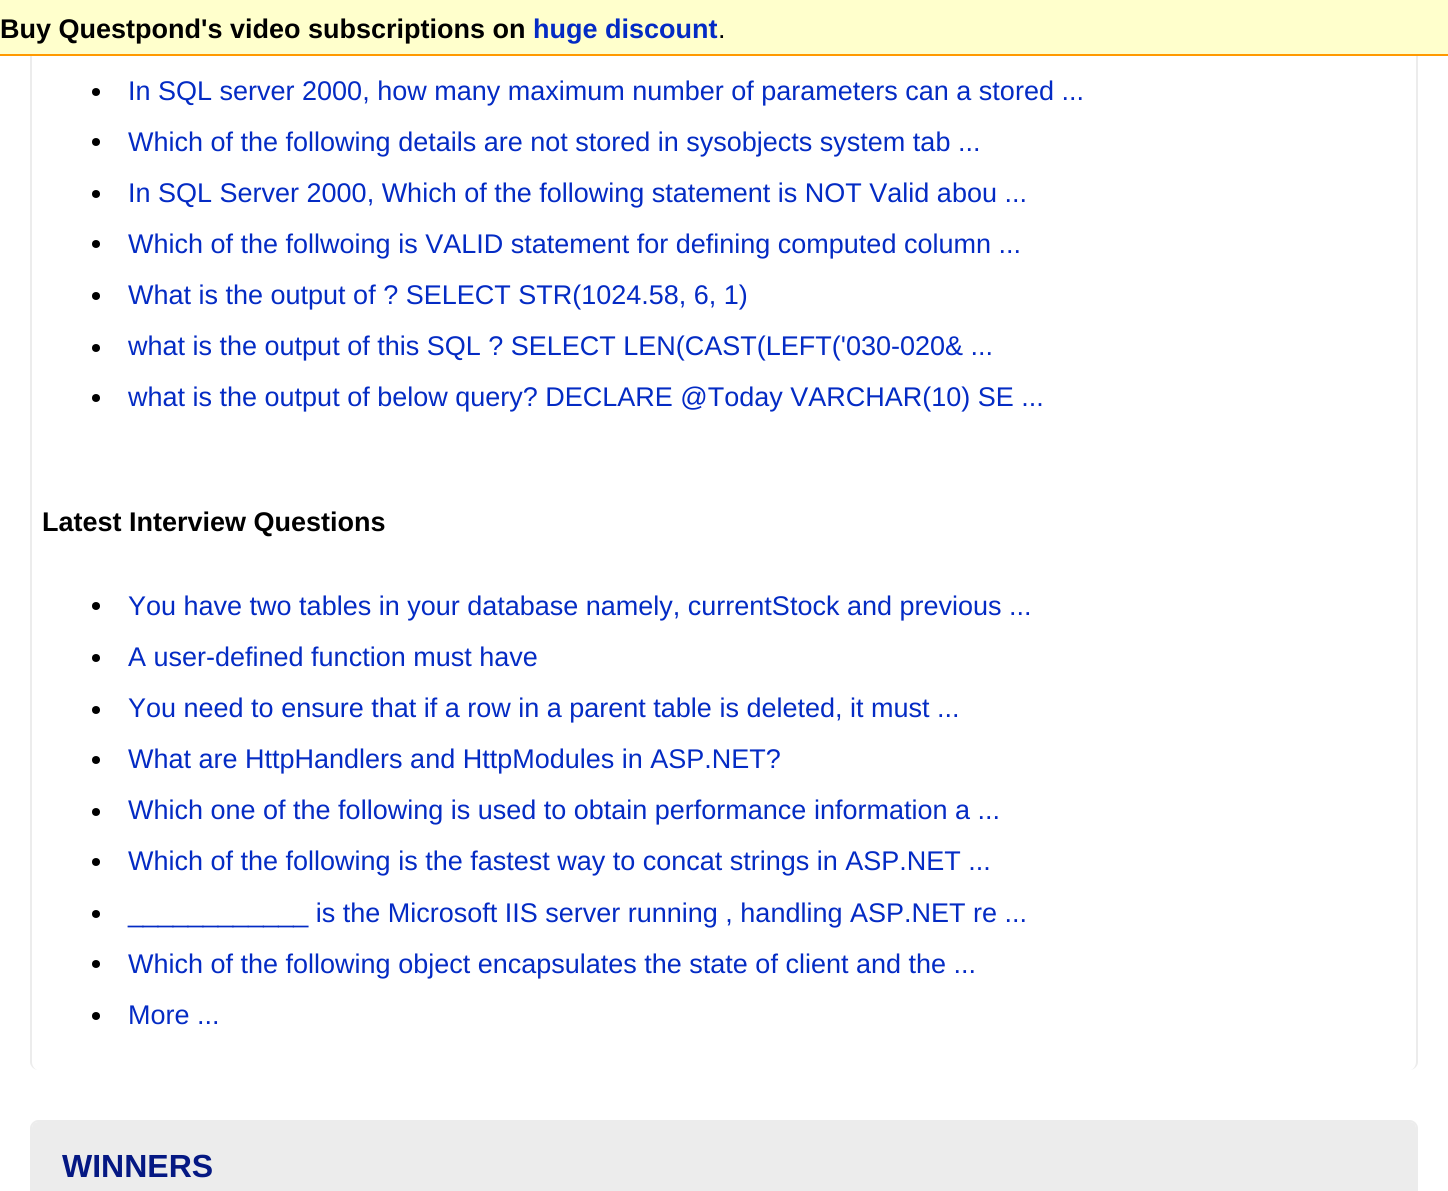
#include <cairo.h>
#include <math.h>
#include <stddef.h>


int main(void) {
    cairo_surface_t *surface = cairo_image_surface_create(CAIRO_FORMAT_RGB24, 1448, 1191);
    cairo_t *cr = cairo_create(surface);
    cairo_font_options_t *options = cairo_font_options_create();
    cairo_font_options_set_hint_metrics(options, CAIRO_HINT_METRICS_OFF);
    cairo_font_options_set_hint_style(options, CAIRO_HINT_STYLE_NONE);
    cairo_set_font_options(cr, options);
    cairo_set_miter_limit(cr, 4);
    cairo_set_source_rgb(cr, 1, 1, 1);
    cairo_paint(cr);
    cairo_set_source_rgb(cr, 0.922, 0.922, 0.922);
    cairo_set_fill_rule(cr, CAIRO_FILL_RULE_EVEN_ODD);
    cairo_new_path(cr);
    cairo_move_to(cr, 38, -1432);
    cairo_line_to(cr, 1410, -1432);
    cairo_curve_to(cr, 1414, -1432, 1418, -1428, 1418, -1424);
    cairo_line_to(cr, 1418, 1062);
    cairo_curve_to(cr, 1418, 1066, 1414, 1070, 1410, 1070);
    cairo_line_to(cr, 38, 1070);
    cairo_curve_to(cr, 34, 1070, 30, 1066, 30, 1062);
    cairo_line_to(cr, 30, -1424);
    cairo_curve_to(cr, 30, -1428, 34, -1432, 38, -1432);
    cairo_close_path(cr);
    cairo_move_to(cr, 38, -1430);
    cairo_line_to(cr, 1410, -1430);
    cairo_curve_to(cr, 1413, -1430, 1416, -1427, 1416, -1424);
    cairo_line_to(cr, 1416, 1062);
    cairo_curve_to(cr, 1416, 1066, 1413, 1070, 1410, 1070);
    cairo_line_to(cr, 38, 1070);
    cairo_curve_to(cr, 35, 1070, 32, 1066, 32, 1062);
    cairo_line_to(cr, 32, -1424);
    cairo_curve_to(cr, 32, -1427, 35, -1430, 38, -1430);
    cairo_close_path(cr);
    cairo_fill(cr);
    cairo_set_source_rgb(cr, 1, 1, 0.8);
    cairo_rectangle(cr, 0, 0, 1448, 54);
    cairo_fill(cr);
    cairo_set_source_rgb(cr, 1, 0.6, 0);
    cairo_rectangle(cr, 0, 54, 1448, 2);
    cairo_fill(cr);
    cairo_select_font_face(cr, "Liberation Sans", CAIRO_FONT_SLANT_NORMAL, CAIRO_FONT_WEIGHT_BOLD);
    cairo_set_font_size(cr, 27);
    cairo_set_source_rgb(cr, 0, 0, 0);
    cairo_move_to(cr, 0, 38);
    cairo_show_text(cr, "Buy Questpond's video subscriptions on");
    cairo_set_source_rgb(cr, 0.016, 0.169, 0.769);
    cairo_move_to(cr, 533, 38);
    cairo_show_text(cr, "huge discount");
    cairo_select_font_face(cr, "Liberation Sans", CAIRO_FONT_SLANT_NORMAL, CAIRO_FONT_WEIGHT_NORMAL);
    cairo_set_source_rgb(cr, 0, 0, 0);
    cairo_move_to(cr, 718, 38);
    cairo_show_text(cr, ".");
    cairo_new_path(cr);
    cairo_arc(cr, 96, 92, 4, 0, 2 * M_PI);
    cairo_fill(cr);
    cairo_set_source_rgb(cr, 0.016, 0.169, 0.769);
    cairo_move_to(cr, 128, 100);
    cairo_show_text(cr, "In SQL server 2000, how many maximum number of parameters can a stored ...");
    cairo_set_source_rgb(cr, 0, 0, 0);
    cairo_new_path(cr);
    cairo_arc(cr, 96, 142, 4, 0, 2 * M_PI);
    cairo_fill(cr);
    cairo_set_source_rgb(cr, 0.016, 0.169, 0.769);
    cairo_move_to(cr, 128, 151);
    cairo_show_text(cr, "Which of the following details are not stored in sysobjects system tab ...");
    cairo_set_source_rgb(cr, 0, 0, 0);
    cairo_new_path(cr);
    cairo_arc(cr, 96, 194, 4, 0, 2 * M_PI);
    cairo_fill(cr);
    cairo_set_source_rgb(cr, 0.016, 0.169, 0.769);
    cairo_move_to(cr, 128, 202);
    cairo_show_text(cr, "In SQL Server 2000, Which of the following statement is NOT Valid abou ...");
    cairo_set_source_rgb(cr, 0, 0, 0);
    cairo_new_path(cr);
    cairo_arc(cr, 96, 244, 4, 0, 2 * M_PI);
    cairo_fill(cr);
    cairo_set_source_rgb(cr, 0.016, 0.169, 0.769);
    cairo_move_to(cr, 128, 253);
    cairo_show_text(cr, "Which of the follwoing is VALID statement for defining computed column ...");
    cairo_set_source_rgb(cr, 0, 0, 0);
    cairo_new_path(cr);
    cairo_arc(cr, 96, 296, 4, 0, 2 * M_PI);
    cairo_fill(cr);
    cairo_set_source_rgb(cr, 0.016, 0.169, 0.769);
    cairo_move_to(cr, 128, 304);
    cairo_show_text(cr, "What is the output of ? SELECT STR(1024.58, 6, 1)");
    cairo_set_source_rgb(cr, 0, 0, 0);
    cairo_new_path(cr);
    cairo_arc(cr, 96, 348, 4, 0, 2 * M_PI);
    cairo_fill(cr);
    cairo_set_source_rgb(cr, 0.016, 0.169, 0.769);
    cairo_move_to(cr, 128, 355);
    cairo_show_text(cr, "what is the output of this SQL ? SELECT LEN(CAST(LEFT('030-020& ...");
    cairo_set_source_rgb(cr, 0, 0, 0);
    cairo_new_path(cr);
    cairo_arc(cr, 96, 398, 4, 0, 2 * M_PI);
    cairo_fill(cr);
    cairo_set_source_rgb(cr, 0.016, 0.169, 0.769);
    cairo_move_to(cr, 128, 406);
    cairo_show_text(cr, "what is the output of below query? DECLARE @Today VARCHAR(10) SE ...");
    cairo_select_font_face(cr, "Liberation Sans", CAIRO_FONT_SLANT_NORMAL, CAIRO_FONT_WEIGHT_BOLD);
    cairo_set_source_rgb(cr, 0, 0, 0);
    cairo_move_to(cr, 42, 531);
    cairo_show_text(cr, "Latest Interview Questions");
    cairo_new_path(cr);
    cairo_arc(cr, 96, 606, 4, 0, 2 * M_PI);
    cairo_fill(cr);
    cairo_select_font_face(cr, "Liberation Sans", CAIRO_FONT_SLANT_NORMAL, CAIRO_FONT_WEIGHT_NORMAL);
    cairo_set_source_rgb(cr, 0.016, 0.169, 0.769);
    cairo_move_to(cr, 128, 615);
    cairo_show_text(cr, "You have two tables in your database namely, currentStock and previous ...");
    cairo_set_source_rgb(cr, 0, 0, 0);
    cairo_new_path(cr);
    cairo_arc(cr, 96, 658, 4, 0, 2 * M_PI);
    cairo_fill(cr);
    cairo_set_source_rgb(cr, 0.016, 0.169, 0.769);
    cairo_move_to(cr, 128, 666);
    cairo_show_text(cr, "A user-defined function must have");
    cairo_set_source_rgb(cr, 0, 0, 0);
    cairo_new_path(cr);
    cairo_arc(cr, 96, 710, 4, 0, 2 * M_PI);
    cairo_fill(cr);
    cairo_set_source_rgb(cr, 0.016, 0.169, 0.769);
    cairo_move_to(cr, 128, 717);
    cairo_show_text(cr, "You need to ensure that if a row in a parent table is deleted, it must ...");
    cairo_set_source_rgb(cr, 0, 0, 0);
    cairo_new_path(cr);
    cairo_arc(cr, 96, 760, 4, 0, 2 * M_PI);
    cairo_fill(cr);
    cairo_set_source_rgb(cr, 0.016, 0.169, 0.769);
    cairo_move_to(cr, 128, 768);
    cairo_show_text(cr, "What are HttpHandlers and HttpModules in ASP.NET?");
    cairo_set_source_rgb(cr, 0, 0, 0);
    cairo_new_path(cr);
    cairo_arc(cr, 96, 812, 4, 0, 2 * M_PI);
    cairo_fill(cr);
    cairo_set_source_rgb(cr, 0.016, 0.169, 0.769);
    cairo_move_to(cr, 128, 819);
    cairo_show_text(cr, "Which one of the following is used to obtain performance information a ...");
    cairo_set_source_rgb(cr, 0, 0, 0);
    cairo_new_path(cr);
    cairo_arc(cr, 96, 862, 4, 0, 2 * M_PI);
    cairo_fill(cr);
    cairo_set_source_rgb(cr, 0.016, 0.169, 0.769);
    cairo_move_to(cr, 128, 870);
    cairo_show_text(cr, "Which of the following is the fastest way to concat strings in ASP.NET ...");
    cairo_set_source_rgb(cr, 0, 0, 0);
    cairo_new_path(cr);
    cairo_arc(cr, 96, 914, 4, 0, 2 * M_PI);
    cairo_fill(cr);
    cairo_set_source_rgb(cr, 0.016, 0.169, 0.769);
    cairo_move_to(cr, 128, 922);
    cairo_show_text(cr, "____________ is the Microsoft IIS server running , handling ASP.NET re ...");
    cairo_set_source_rgb(cr, 0, 0, 0);
    cairo_new_path(cr);
    cairo_arc(cr, 96, 964, 4, 0, 2 * M_PI);
    cairo_fill(cr);
    cairo_set_source_rgb(cr, 0.016, 0.169, 0.769);
    cairo_move_to(cr, 128, 973);
    cairo_show_text(cr, "Which of the following object encapsulates the state of client and the ...");
    cairo_set_source_rgb(cr, 0, 0, 0);
    cairo_new_path(cr);
    cairo_arc(cr, 96, 1016, 4, 0, 2 * M_PI);
    cairo_fill(cr);
    cairo_set_source_rgb(cr, 0.016, 0.169, 0.769);
    cairo_move_to(cr, 128, 1024);
    cairo_show_text(cr, "More ...");
    cairo_set_source_rgb(cr, 0.922, 0.922, 0.922);
    cairo_new_path(cr);
    cairo_move_to(cr, 38, 1120);
    cairo_line_to(cr, 1410, 1120);
    cairo_curve_to(cr, 1414, 1120, 1418, 1124, 1418, 1128);
    cairo_line_to(cr, 1418, 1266);
    cairo_curve_to(cr, 1418, 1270, 1414, 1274, 1410, 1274);
    cairo_line_to(cr, 38, 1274);
    cairo_curve_to(cr, 34, 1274, 30, 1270, 30, 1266);
    cairo_line_to(cr, 30, 1128);
    cairo_curve_to(cr, 30, 1124, 34, 1120, 38, 1120);
    cairo_close_path(cr);
    cairo_move_to(cr, 38, 1122);
    cairo_line_to(cr, 1410, 1122);
    cairo_curve_to(cr, 1413, 1122, 1416, 1125, 1416, 1128);
    cairo_line_to(cr, 1416, 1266);
    cairo_curve_to(cr, 1416, 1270, 1413, 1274, 1410, 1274);
    cairo_line_to(cr, 38, 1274);
    cairo_curve_to(cr, 35, 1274, 32, 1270, 32, 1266);
    cairo_line_to(cr, 32, 1128);
    cairo_curve_to(cr, 32, 1125, 35, 1122, 38, 1122);
    cairo_close_path(cr);
    cairo_fill(cr);
    cairo_new_path(cr);
    cairo_move_to(cr, 38, 1122);
    cairo_line_to(cr, 1410, 1122);
    cairo_curve_to(cr, 1413.5, 1122, 1416, 1124.5, 1416, 1128);
    cairo_line_to(cr, 1416, 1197);
    cairo_line_to(cr, 32, 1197);
    cairo_line_to(cr, 32, 1128);
    cairo_curve_to(cr, 32, 1124.5, 34.5, 1122, 38, 1122);
    cairo_close_path(cr);
    cairo_fill(cr);
    cairo_select_font_face(cr, "Liberation Sans", CAIRO_FONT_SLANT_NORMAL, CAIRO_FONT_WEIGHT_BOLD);
    cairo_set_font_size(cr, 32);
    cairo_set_source_rgb(cr, 0.02, 0.094, 0.514);
    cairo_move_to(cr, 62, 1177);
    cairo_show_text(cr, "WINNERS");
    cairo_surface_write_to_png(surface, "page.png");
    cairo_font_options_destroy(options);
    cairo_destroy(cr);
    cairo_surface_destroy(surface);
    return 0;
}
